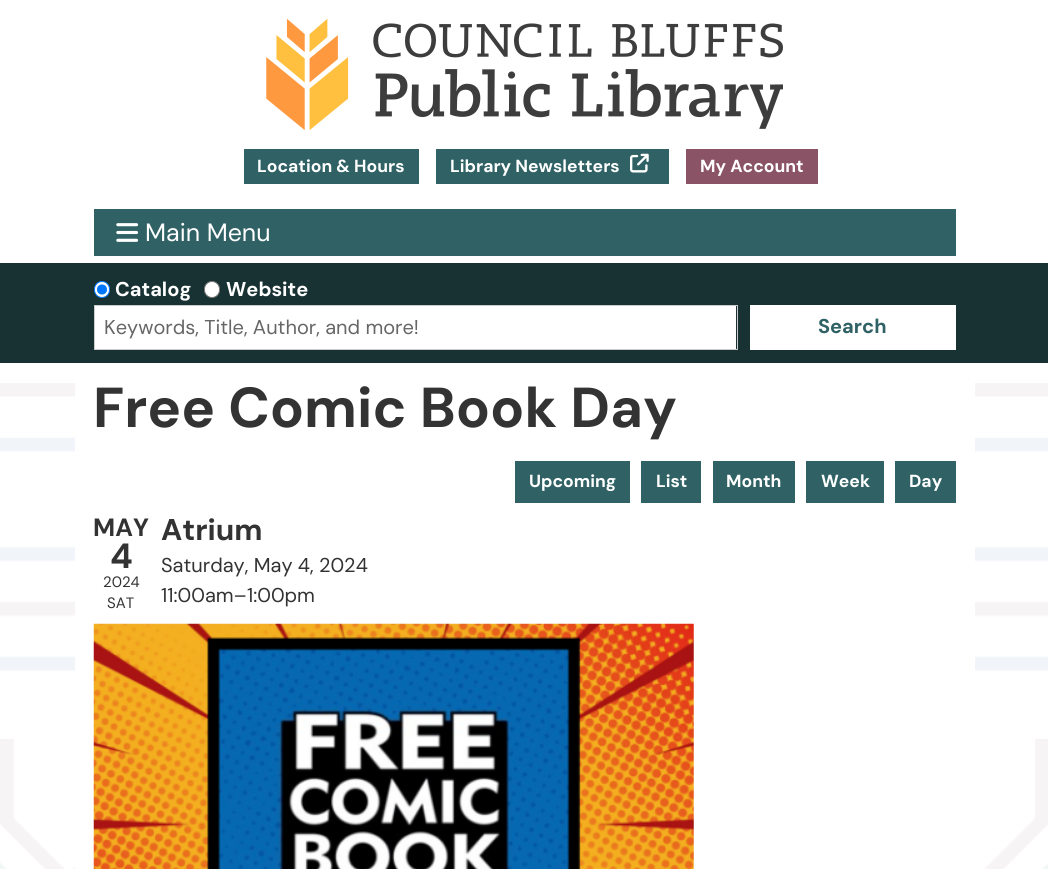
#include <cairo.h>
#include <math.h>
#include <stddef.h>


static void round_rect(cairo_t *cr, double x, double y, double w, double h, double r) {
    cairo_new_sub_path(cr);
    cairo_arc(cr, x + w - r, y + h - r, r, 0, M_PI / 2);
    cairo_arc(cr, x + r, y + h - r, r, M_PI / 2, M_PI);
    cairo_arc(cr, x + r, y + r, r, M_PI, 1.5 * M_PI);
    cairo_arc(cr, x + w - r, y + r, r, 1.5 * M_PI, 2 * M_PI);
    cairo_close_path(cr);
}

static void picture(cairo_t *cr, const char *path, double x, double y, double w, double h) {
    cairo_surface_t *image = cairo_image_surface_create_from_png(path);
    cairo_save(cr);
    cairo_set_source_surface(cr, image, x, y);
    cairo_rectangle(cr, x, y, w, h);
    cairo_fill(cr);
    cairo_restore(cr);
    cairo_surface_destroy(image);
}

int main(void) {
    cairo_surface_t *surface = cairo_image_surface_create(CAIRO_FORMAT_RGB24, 1048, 869);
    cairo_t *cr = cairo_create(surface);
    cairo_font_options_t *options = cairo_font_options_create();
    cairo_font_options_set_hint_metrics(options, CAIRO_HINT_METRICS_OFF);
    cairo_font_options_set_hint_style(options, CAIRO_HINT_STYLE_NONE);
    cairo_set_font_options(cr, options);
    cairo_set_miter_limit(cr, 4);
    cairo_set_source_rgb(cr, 1, 1, 1);
    cairo_paint(cr);
    picture(cr, "img1.png", 266, 19, 517, 111);
    cairo_set_source_rgb(cr, 0.184, 0.38, 0.396);
    cairo_rectangle(cr, 244, 149, 175, 35);
    cairo_fill(cr);
    cairo_select_font_face(cr, "DM Sans", CAIRO_FONT_SLANT_NORMAL, CAIRO_FONT_WEIGHT_BOLD);
    cairo_set_font_size(cr, 17.5);
    cairo_set_source_rgb(cr, 1, 1, 1);
    cairo_move_to(cr, 257, 172);
    cairo_show_text(cr, "Location & Hours");
    cairo_set_source_rgb(cr, 0.184, 0.38, 0.396);
    cairo_rectangle(cr, 436, 149, 233, 35);
    cairo_fill(cr);
    cairo_set_source_rgb(cr, 1, 1, 1);
    cairo_move_to(cr, 450, 172);
    cairo_show_text(cr, "Library Newsletters");
    picture(cr, "img2.png", 630, 153, 19, 20);
    cairo_set_source_rgb(cr, 0.541, 0.329, 0.4);
    cairo_rectangle(cr, 686, 149, 132, 35);
    cairo_fill(cr);
    cairo_set_source_rgb(cr, 1, 1, 1);
    cairo_move_to(cr, 700, 172);
    cairo_show_text(cr, "My Account");
    cairo_set_source_rgb(cr, 0.184, 0.38, 0.396);
    cairo_rectangle(cr, 94, 209, 862, 47);
    cairo_fill(cr);
    picture(cr, "img3.png", 116, 223, 23, 19);
    cairo_select_font_face(cr, "DM Sans", CAIRO_FONT_SLANT_NORMAL, CAIRO_FONT_WEIGHT_NORMAL);
    cairo_set_font_size(cr, 25);
    cairo_set_source_rgb(cr, 1, 1, 1);
    cairo_move_to(cr, 145, 241);
    cairo_show_text(cr, "Main Menu");
    cairo_set_source_rgb(cr, 0.094, 0.192, 0.2);
    cairo_rectangle(cr, 0, 263, 1048, 100);
    cairo_fill(cr);
    cairo_set_source_rgb(cr, 1, 1, 1);
    round_rect(cr, 94.5, 281.5, 15, 16, 7.5);
    cairo_fill_preserve(cr);
    cairo_set_source_rgb(cr, 0, 0.459, 1);
    cairo_set_line_width(cr, 1);
    cairo_stroke(cr);
    cairo_arc(cr, 102, 289.5, 5, 0, 2 * M_PI);
    cairo_fill(cr);
    cairo_select_font_face(cr, "DM Sans", CAIRO_FONT_SLANT_NORMAL, CAIRO_FONT_WEIGHT_BOLD);
    cairo_set_font_size(cr, 20);
    cairo_set_source_rgb(cr, 1, 1, 1);
    cairo_move_to(cr, 115, 296);
    cairo_show_text(cr, "Catalog");
    round_rect(cr, 204.5, 281.5, 15, 16, 7.5);
    cairo_fill_preserve(cr);
    cairo_set_source_rgb(cr, 0.463, 0.463, 0.463);
    cairo_stroke(cr);
    cairo_set_source_rgb(cr, 1, 1, 1);
    cairo_move_to(cr, 226, 296);
    cairo_show_text(cr, "Website");
    cairo_rectangle(cr, 95, 306, 641, 43);
    cairo_fill(cr);
    cairo_rectangle(cr, 94.5, 305.5, 643, 44);
    cairo_set_source_rgb(cr, 0.8, 0.8, 0.8);
    cairo_stroke(cr);
    cairo_select_font_face(cr, "DM Sans", CAIRO_FONT_SLANT_NORMAL, CAIRO_FONT_WEIGHT_NORMAL);
    cairo_set_source_rgb(cr, 0.4, 0.4, 0.4);
    cairo_move_to(cr, 104, 334);
    cairo_show_text(cr, "Keywords, Title, Author, and more!");
    cairo_set_source_rgb(cr, 1, 1, 1);
    cairo_rectangle(cr, 750, 305, 206, 45);
    cairo_fill(cr);
    cairo_select_font_face(cr, "DM Sans", CAIRO_FONT_SLANT_NORMAL, CAIRO_FONT_WEIGHT_BOLD);
    cairo_set_source_rgb(cr, 0.184, 0.38, 0.396);
    cairo_move_to(cr, 818, 333);
    cairo_show_text(cr, "Search");
    picture(cr, "img4.png", 0, 383, 1048, 486);
    cairo_set_source_rgb(cr, 1, 1, 1);
    cairo_rectangle(cr, 75, 383, 900, 486);
    cairo_fill(cr);
    cairo_set_font_size(cr, 56.25);
    cairo_set_source_rgb(cr, 0.2, 0.2, 0.2);
    cairo_move_to(cr, 93, 427);
    cairo_show_text(cr, "Free Comic Book Day");
    cairo_set_source_rgb(cr, 0.184, 0.38, 0.396);
    cairo_rectangle(cr, 515, 461, 115, 42);
    cairo_fill(cr);
    cairo_set_font_size(cr, 17.5);
    cairo_set_source_rgb(cr, 1, 1, 1);
    cairo_move_to(cr, 529, 487);
    cairo_show_text(cr, "Upcoming");
    cairo_set_source_rgb(cr, 0.184, 0.38, 0.396);
    cairo_rectangle(cr, 641, 461, 60, 42);
    cairo_fill(cr);
    cairo_set_source_rgb(cr, 1, 1, 1);
    cairo_move_to(cr, 656, 487);
    cairo_show_text(cr, "List");
    cairo_set_source_rgb(cr, 0.184, 0.38, 0.396);
    cairo_rectangle(cr, 713, 461, 82, 42);
    cairo_fill(cr);
    cairo_set_source_rgb(cr, 1, 1, 1);
    cairo_move_to(cr, 726, 487);
    cairo_show_text(cr, "Month");
    cairo_set_source_rgb(cr, 0.184, 0.38, 0.396);
    cairo_rectangle(cr, 806, 461, 78, 42);
    cairo_fill(cr);
    cairo_set_source_rgb(cr, 1, 1, 1);
    cairo_move_to(cr, 821, 487);
    cairo_show_text(cr, "Week");
    cairo_set_source_rgb(cr, 0.184, 0.38, 0.396);
    cairo_rectangle(cr, 895, 461, 61, 42);
    cairo_fill(cr);
    cairo_set_source_rgb(cr, 1, 1, 1);
    cairo_move_to(cr, 909, 487);
    cairo_show_text(cr, "Day");
    cairo_set_font_size(cr, 25);
    cairo_set_source_rgb(cr, 0.2, 0.2, 0.2);
    cairo_move_to(cr, 93, 536);
    cairo_show_text(cr, "MAY");
    cairo_set_font_size(cr, 35);
    cairo_move_to(cr, 110, 568);
    cairo_show_text(cr, "4");
    cairo_select_font_face(cr, "DM Sans", CAIRO_FONT_SLANT_NORMAL, CAIRO_FONT_WEIGHT_NORMAL);
    cairo_set_font_size(cr, 15);
    cairo_move_to(cr, 103, 587);
    cairo_show_text(cr, "2024");
    cairo_move_to(cr, 107, 608);
    cairo_show_text(cr, "SAT");
    cairo_select_font_face(cr, "DM Sans", CAIRO_FONT_SLANT_NORMAL, CAIRO_FONT_WEIGHT_BOLD);
    cairo_set_font_size(cr, 30);
    cairo_move_to(cr, 161, 540);
    cairo_show_text(cr, "Atrium");
    cairo_select_font_face(cr, "DM Sans", CAIRO_FONT_SLANT_NORMAL, CAIRO_FONT_WEIGHT_NORMAL);
    cairo_set_font_size(cr, 20);
    cairo_move_to(cr, 161, 572);
    cairo_show_text(cr, "Saturday, May 4, 2024");
    cairo_move_to(cr, 161, 602);
    cairo_show_text(cr, "11:00am–1:00pm");
    picture(cr, "img5.png", 93, 623, 601, 246);
    cairo_surface_write_to_png(surface, "page.png");
    cairo_font_options_destroy(options);
    cairo_destroy(cr);
    cairo_surface_destroy(surface);
    return 0;
}
